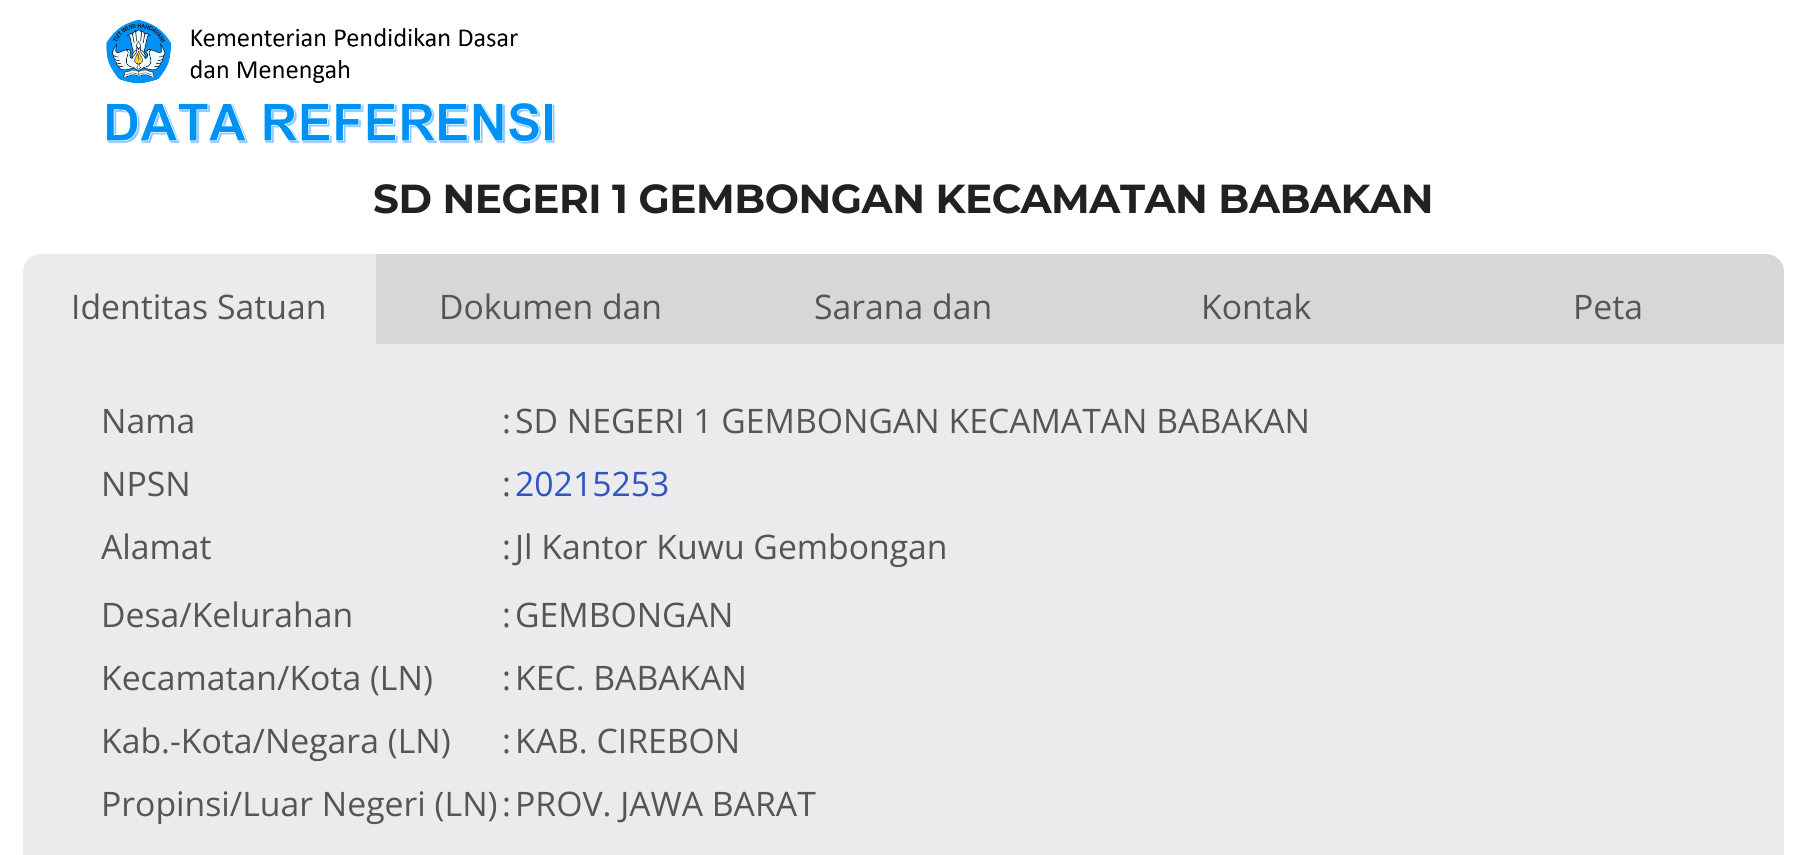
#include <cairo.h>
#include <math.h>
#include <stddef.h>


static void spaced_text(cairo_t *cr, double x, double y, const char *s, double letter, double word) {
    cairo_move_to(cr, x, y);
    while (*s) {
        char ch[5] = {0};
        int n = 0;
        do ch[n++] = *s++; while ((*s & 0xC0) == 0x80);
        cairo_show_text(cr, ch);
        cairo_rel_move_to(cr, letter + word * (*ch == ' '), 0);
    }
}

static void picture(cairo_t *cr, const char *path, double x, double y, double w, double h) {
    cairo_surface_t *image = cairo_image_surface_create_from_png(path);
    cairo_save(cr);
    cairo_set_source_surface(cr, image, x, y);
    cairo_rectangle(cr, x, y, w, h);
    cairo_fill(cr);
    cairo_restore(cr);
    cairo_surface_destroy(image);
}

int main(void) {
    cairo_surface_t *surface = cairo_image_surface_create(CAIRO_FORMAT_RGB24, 1805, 855);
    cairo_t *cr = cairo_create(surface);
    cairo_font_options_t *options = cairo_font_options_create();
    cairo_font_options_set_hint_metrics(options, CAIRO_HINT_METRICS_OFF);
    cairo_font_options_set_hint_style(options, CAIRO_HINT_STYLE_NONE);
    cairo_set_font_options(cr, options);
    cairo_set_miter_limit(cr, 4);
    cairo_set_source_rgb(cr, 1, 1, 1);
    cairo_paint(cr);
    picture(cr, "img1.png", 106, 19, 449, 125);
    cairo_select_font_face(cr, "Montserrat", CAIRO_FONT_SLANT_NORMAL, CAIRO_FONT_WEIGHT_BOLD);
    cairo_set_font_size(cr, 40.5);
    cairo_set_source_rgb(cr, 0.129, 0.129, 0.129);
    spaced_text(cr, 373, 213, "SD NEGERI 1 GEMBONGAN KECAMATAN BABAKAN", -0.45, 0);
    cairo_set_source_rgb(cr, 0.918, 0.918, 0.933);
    cairo_new_path(cr);
    cairo_move_to(cr, 41, 254);
    cairo_line_to(cr, 376, 254);
    cairo_line_to(cr, 376, 344);
    cairo_line_to(cr, 23, 344);
    cairo_line_to(cr, 23, 272);
    cairo_curve_to(cr, 23, 262, 31, 254, 41, 254);
    cairo_close_path(cr);
    cairo_fill(cr);
    cairo_select_font_face(cr, "Open Sans", CAIRO_FONT_SLANT_NORMAL, CAIRO_FONT_WEIGHT_NORMAL);
    cairo_set_font_size(cr, 33.75);
    cairo_set_source_rgb(cr, 0.333, 0.333, 0.333);
    cairo_move_to(cr, 71, 319);
    cairo_show_text(cr, "Identitas Satuan");
    cairo_set_source_rgb(cr, 0.918, 0.918, 0.933);
    cairo_rectangle(cr, 23, 344, 1761, 511);
    cairo_fill(cr);
    cairo_set_source_rgb(cr, 0.333, 0.333, 0.333);
    cairo_move_to(cr, 101, 433);
    cairo_show_text(cr, "Nama");
    cairo_move_to(cr, 502, 433);
    cairo_show_text(cr, ":");
    cairo_move_to(cr, 515, 433);
    cairo_show_text(cr, "SD NEGERI 1 GEMBONGAN KECAMATAN BABAKAN");
    cairo_move_to(cr, 101, 496);
    cairo_show_text(cr, "NPSN");
    cairo_move_to(cr, 502, 496);
    cairo_show_text(cr, ":");
    cairo_set_source_rgb(cr, 0.188, 0.333, 0.745);
    cairo_move_to(cr, 515, 496);
    cairo_show_text(cr, "20215253");
    cairo_set_source_rgb(cr, 0.333, 0.333, 0.333);
    cairo_move_to(cr, 101, 559);
    cairo_show_text(cr, "Alamat");
    cairo_move_to(cr, 502, 559);
    cairo_show_text(cr, ":");
    cairo_move_to(cr, 515, 559);
    cairo_show_text(cr, "Jl Kantor Kuwu Gembongan");
    cairo_move_to(cr, 101, 627);
    cairo_show_text(cr, "Desa/Kelurahan");
    cairo_move_to(cr, 502, 627);
    cairo_show_text(cr, ":");
    cairo_move_to(cr, 515, 627);
    cairo_show_text(cr, "GEMBONGAN");
    cairo_move_to(cr, 101, 690);
    cairo_show_text(cr, "Kecamatan/Kota (LN)");
    cairo_move_to(cr, 502, 690);
    cairo_show_text(cr, ":");
    cairo_move_to(cr, 515, 690);
    cairo_show_text(cr, "KEC. BABAKAN");
    cairo_move_to(cr, 101, 753);
    cairo_show_text(cr, "Kab.-Kota/Negara (LN)");
    cairo_move_to(cr, 502, 753);
    cairo_show_text(cr, ":");
    cairo_move_to(cr, 515, 753);
    cairo_show_text(cr, "KAB. CIREBON");
    cairo_move_to(cr, 101, 816);
    cairo_show_text(cr, "Propinsi/Luar Negeri (LN)");
    cairo_move_to(cr, 502, 816);
    cairo_show_text(cr, ":");
    cairo_move_to(cr, 515, 816);
    cairo_show_text(cr, "PROV. JAWA BARAT");
    cairo_set_source_rgb(cr, 0.843, 0.843, 0.843);
    cairo_rectangle(cr, 376, 254, 1055, 90);
    cairo_fill(cr);
    cairo_set_source_rgb(cr, 0.333, 0.333, 0.333);
    cairo_move_to(cr, 439, 319);
    cairo_show_text(cr, "Dokumen dan");
    cairo_move_to(cr, 814, 319);
    cairo_show_text(cr, "Sarana dan");
    cairo_move_to(cr, 1201, 319);
    cairo_show_text(cr, "Kontak");
    cairo_set_source_rgb(cr, 0.843, 0.843, 0.843);
    cairo_new_path(cr);
    cairo_move_to(cr, 1431, 254);
    cairo_line_to(cr, 1766, 254);
    cairo_curve_to(cr, 1776, 254, 1784, 262, 1784, 272);
    cairo_line_to(cr, 1784, 344);
    cairo_line_to(cr, 1431, 344);
    cairo_close_path(cr);
    cairo_fill(cr);
    cairo_set_source_rgb(cr, 0.333, 0.333, 0.333);
    cairo_move_to(cr, 1573, 319);
    cairo_show_text(cr, "Peta");
    cairo_surface_write_to_png(surface, "page.png");
    cairo_font_options_destroy(options);
    cairo_destroy(cr);
    cairo_surface_destroy(surface);
    return 0;
}
